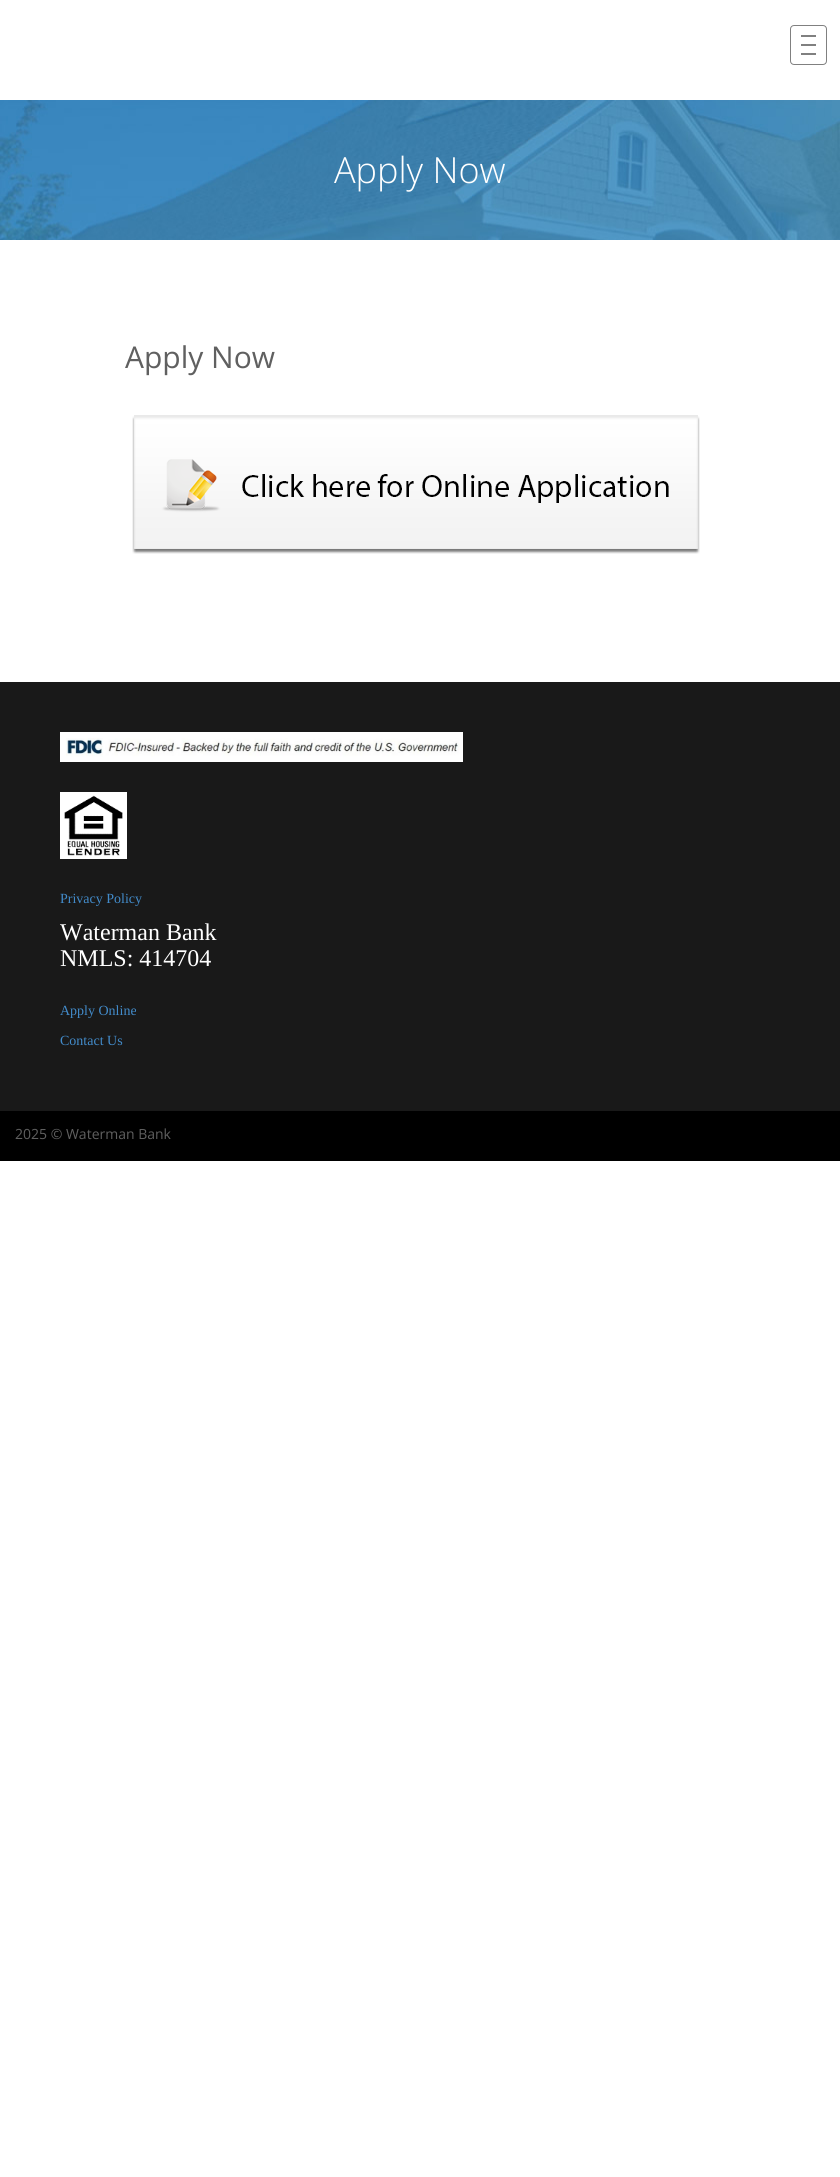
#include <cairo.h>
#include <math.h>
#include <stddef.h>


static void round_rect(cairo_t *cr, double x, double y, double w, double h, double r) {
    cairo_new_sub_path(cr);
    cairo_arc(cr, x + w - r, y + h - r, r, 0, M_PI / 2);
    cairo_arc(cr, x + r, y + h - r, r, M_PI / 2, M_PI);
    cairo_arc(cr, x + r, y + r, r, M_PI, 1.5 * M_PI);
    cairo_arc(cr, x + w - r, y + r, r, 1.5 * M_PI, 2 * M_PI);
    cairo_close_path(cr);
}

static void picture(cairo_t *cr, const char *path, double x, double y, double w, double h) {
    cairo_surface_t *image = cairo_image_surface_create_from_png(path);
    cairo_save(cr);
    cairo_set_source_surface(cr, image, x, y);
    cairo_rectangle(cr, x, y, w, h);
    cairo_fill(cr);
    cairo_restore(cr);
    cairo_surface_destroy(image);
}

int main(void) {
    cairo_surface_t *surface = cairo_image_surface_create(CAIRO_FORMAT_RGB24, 840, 2177);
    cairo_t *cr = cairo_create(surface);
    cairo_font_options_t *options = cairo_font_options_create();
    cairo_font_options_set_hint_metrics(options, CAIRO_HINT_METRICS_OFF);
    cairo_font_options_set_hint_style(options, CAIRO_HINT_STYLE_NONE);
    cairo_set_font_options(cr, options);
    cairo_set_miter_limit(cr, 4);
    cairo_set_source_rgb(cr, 1, 1, 1);
    cairo_paint(cr);
    round_rect(cr, 790.5, 25.5, 36, 39, 3.5);
    cairo_set_source_rgb(cr, 0.502, 0.502, 0.502);
    cairo_set_line_width(cr, 1);
    cairo_stroke(cr);
    cairo_rectangle(cr, 801, 35, 15, 2);
    cairo_fill(cr);
    cairo_rectangle(cr, 801, 44, 15, 2);
    cairo_fill(cr);
    cairo_rectangle(cr, 801, 53, 15, 2);
    cairo_fill(cr);
    picture(cr, "img1.png", 0, 100, 840, 140);
    cairo_select_font_face(cr, "Open Sans Light", CAIRO_FONT_SLANT_NORMAL, CAIRO_FONT_WEIGHT_NORMAL);
    cairo_set_font_size(cr, 36);
    cairo_set_source_rgb(cr, 1, 1, 1);
    cairo_move_to(cr, 334, 183);
    cairo_show_text(cr, "Apply Now");
    cairo_select_font_face(cr, "Open Sans", CAIRO_FONT_SLANT_NORMAL, CAIRO_FONT_WEIGHT_NORMAL);
    cairo_set_font_size(cr, 30);
    cairo_set_source_rgb(cr, 0.376, 0.376, 0.376);
    cairo_move_to(cr, 125, 368);
    cairo_show_text(cr, "Apply Now");
    picture(cr, "img2.png", 132, 415, 568, 139);
    cairo_set_source_rgb(cr, 0.098, 0.098, 0.098);
    cairo_rectangle(cr, 0, 682, 840, 429);
    cairo_fill(cr);
    picture(cr, "img3.png", 60, 732, 403, 30);
    picture(cr, "img4.png", 60, 792, 67, 67);
    cairo_select_font_face(cr, "Liberation Serif", CAIRO_FONT_SLANT_NORMAL, CAIRO_FONT_WEIGHT_NORMAL);
    cairo_set_font_size(cr, 14);
    cairo_set_source_rgb(cr, 0.259, 0.545, 0.792);
    cairo_move_to(cr, 60, 903);
    cairo_show_text(cr, "Privacy Policy");
    cairo_set_font_size(cr, 24);
    cairo_set_source_rgb(cr, 1, 1, 1);
    cairo_move_to(cr, 60, 940);
    cairo_show_text(cr, "Waterman Bank");
    cairo_move_to(cr, 60, 966);
    cairo_show_text(cr, "NMLS: 414704");
    cairo_set_font_size(cr, 14);
    cairo_set_source_rgb(cr, 0.259, 0.545, 0.792);
    cairo_move_to(cr, 60, 1015);
    cairo_show_text(cr, "Apply Online");
    cairo_move_to(cr, 60, 1045);
    cairo_show_text(cr, "Contact Us");
    cairo_set_source_rgb(cr, 0, 0, 0);
    cairo_rectangle(cr, 0, 1111, 840, 50);
    cairo_fill(cr);
    cairo_select_font_face(cr, "Open Sans", CAIRO_FONT_SLANT_NORMAL, CAIRO_FONT_WEIGHT_NORMAL);
    cairo_set_source_rgb(cr, 0.376, 0.376, 0.376);
    cairo_move_to(cr, 15, 1139);
    cairo_show_text(cr, "2025 © Waterman Bank");
    cairo_surface_write_to_png(surface, "page.png");
    cairo_font_options_destroy(options);
    cairo_destroy(cr);
    cairo_surface_destroy(surface);
    return 0;
}
